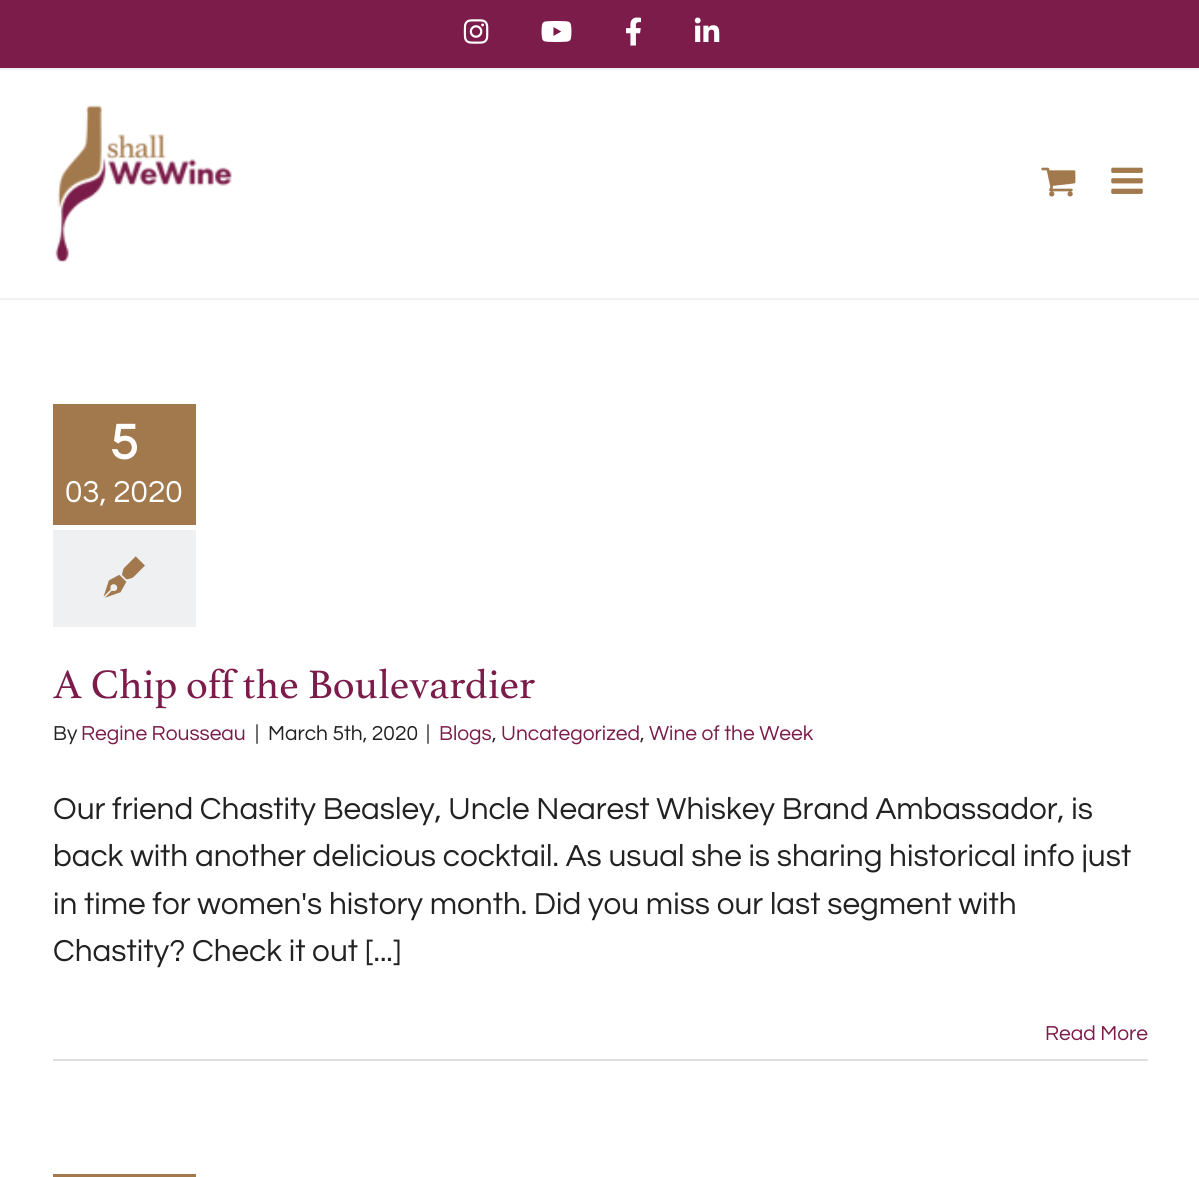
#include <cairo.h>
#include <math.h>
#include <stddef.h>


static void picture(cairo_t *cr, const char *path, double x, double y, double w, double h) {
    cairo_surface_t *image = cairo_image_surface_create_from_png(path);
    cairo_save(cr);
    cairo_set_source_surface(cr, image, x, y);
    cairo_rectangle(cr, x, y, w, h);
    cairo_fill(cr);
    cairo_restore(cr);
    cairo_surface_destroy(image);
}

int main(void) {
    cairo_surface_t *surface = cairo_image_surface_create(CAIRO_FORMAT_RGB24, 1199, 1177);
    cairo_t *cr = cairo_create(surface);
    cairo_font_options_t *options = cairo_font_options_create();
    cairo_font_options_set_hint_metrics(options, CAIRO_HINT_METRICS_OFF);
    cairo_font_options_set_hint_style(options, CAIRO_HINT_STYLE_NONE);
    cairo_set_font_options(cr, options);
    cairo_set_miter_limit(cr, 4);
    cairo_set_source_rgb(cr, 1, 1, 1);
    cairo_paint(cr);
    cairo_set_source_rgb(cr, 0.482, 0.11, 0.29);
    cairo_rectangle(cr, 0, 0, 1199, 68);
    cairo_fill(cr);
    cairo_set_source_rgb(cr, 0.949, 0.949, 0.949);
    cairo_rectangle(cr, 0, 68, 1199, 2);
    cairo_fill(cr);
    picture(cr, "img1.png", 463, 19, 26, 25);
    picture(cr, "img2.png", 541, 21, 31, 21);
    picture(cr, "img3.png", 626, 17, 15, 29);
    picture(cr, "img4.png", 694, 17, 26, 25);
    cairo_rectangle(cr, 0, 298, 1199, 2);
    cairo_fill(cr);
    picture(cr, "img5.png", 55, 105, 177, 158);
    picture(cr, "img6.png", 1041, 167, 35, 30);
    picture(cr, "img7.png", 1111, 167, 32, 27);
    cairo_set_source_rgb(cr, 0.635, 0.475, 0.302);
    cairo_rectangle(cr, 53, 404, 143, 121);
    cairo_fill(cr);
    cairo_select_font_face(cr, "Questrial", CAIRO_FONT_SLANT_NORMAL, CAIRO_FONT_WEIGHT_BOLD);
    cairo_set_font_size(cr, 51);
    cairo_set_source_rgb(cr, 1, 1, 1);
    cairo_move_to(cr, 110, 459);
    cairo_show_text(cr, "5");
    cairo_select_font_face(cr, "Questrial", CAIRO_FONT_SLANT_NORMAL, CAIRO_FONT_WEIGHT_NORMAL);
    cairo_set_font_size(cr, 31.5);
    cairo_move_to(cr, 65, 502);
    cairo_show_text(cr, "03, 2020");
    cairo_set_source_rgb(cr, 0.933, 0.941, 0.949);
    cairo_rectangle(cr, 53, 530, 143, 97);
    cairo_fill(cr);
    picture(cr, "img8.png", 103, 556, 42, 42);
    cairo_select_font_face(cr, "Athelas", CAIRO_FONT_SLANT_NORMAL, CAIRO_FONT_WEIGHT_NORMAL);
    cairo_set_font_size(cr, 42);
    cairo_set_source_rgb(cr, 0.482, 0.11, 0.29);
    cairo_move_to(cr, 53, 698);
    cairo_show_text(cr, "A Chip off the Boulevardier");
    cairo_select_font_face(cr, "Questrial", CAIRO_FONT_SLANT_NORMAL, CAIRO_FONT_WEIGHT_NORMAL);
    cairo_set_font_size(cr, 21);
    cairo_set_source_rgb(cr, 0.133, 0.133, 0.133);
    cairo_move_to(cr, 53, 740);
    cairo_show_text(cr, "By");
    cairo_set_source_rgb(cr, 0.482, 0.11, 0.29);
    cairo_move_to(cr, 81, 740);
    cairo_show_text(cr, "Regine Rousseau");
    cairo_set_source_rgb(cr, 0.133, 0.133, 0.133);
    cairo_move_to(cr, 255, 740);
    cairo_show_text(cr, "|");
    cairo_move_to(cr, 268, 740);
    cairo_show_text(cr, "March 5th, 2020");
    cairo_move_to(cr, 426, 740);
    cairo_show_text(cr, "|");
    cairo_set_source_rgb(cr, 0.482, 0.11, 0.29);
    cairo_move_to(cr, 439, 740);
    cairo_show_text(cr, "Blogs");
    cairo_set_source_rgb(cr, 0.133, 0.133, 0.133);
    cairo_move_to(cr, 492, 740);
    cairo_show_text(cr, ",");
    cairo_set_source_rgb(cr, 0.482, 0.11, 0.29);
    cairo_move_to(cr, 501, 740);
    cairo_show_text(cr, "Uncategorized");
    cairo_set_source_rgb(cr, 0.133, 0.133, 0.133);
    cairo_move_to(cr, 640, 740);
    cairo_show_text(cr, ",");
    cairo_set_source_rgb(cr, 0.482, 0.11, 0.29);
    cairo_move_to(cr, 649, 740);
    cairo_show_text(cr, "Wine of the Week");
    cairo_set_font_size(cr, 31.5);
    cairo_set_source_rgb(cr, 0.133, 0.133, 0.133);
    cairo_move_to(cr, 53, 819);
    cairo_show_text(cr, "Our friend Chastity Beasley, Uncle Nearest Whiskey Brand Ambassador, is");
    cairo_move_to(cr, 53, 866);
    cairo_show_text(cr, "back with another delicious cocktail. As usual she is sharing historical info just");
    cairo_move_to(cr, 53, 914);
    cairo_show_text(cr, "in time for women's history month. Did you miss our last segment with");
    cairo_move_to(cr, 53, 961);
    cairo_show_text(cr, "Chastity? Check it out [...]");
    cairo_set_source_rgb(cr, 0.878, 0.871, 0.871);
    cairo_rectangle(cr, 53, 1059, 1095, 2);
    cairo_fill(cr);
    cairo_set_font_size(cr, 21);
    cairo_set_source_rgb(cr, 0.482, 0.11, 0.29);
    cairo_move_to(cr, 1045, 1040);
    cairo_show_text(cr, "Read More");
    cairo_set_source_rgb(cr, 0.635, 0.475, 0.302);
    cairo_rectangle(cr, 53, 1174, 143, 3);
    cairo_fill(cr);
    cairo_surface_write_to_png(surface, "page.png");
    cairo_font_options_destroy(options);
    cairo_destroy(cr);
    cairo_surface_destroy(surface);
    return 0;
}
